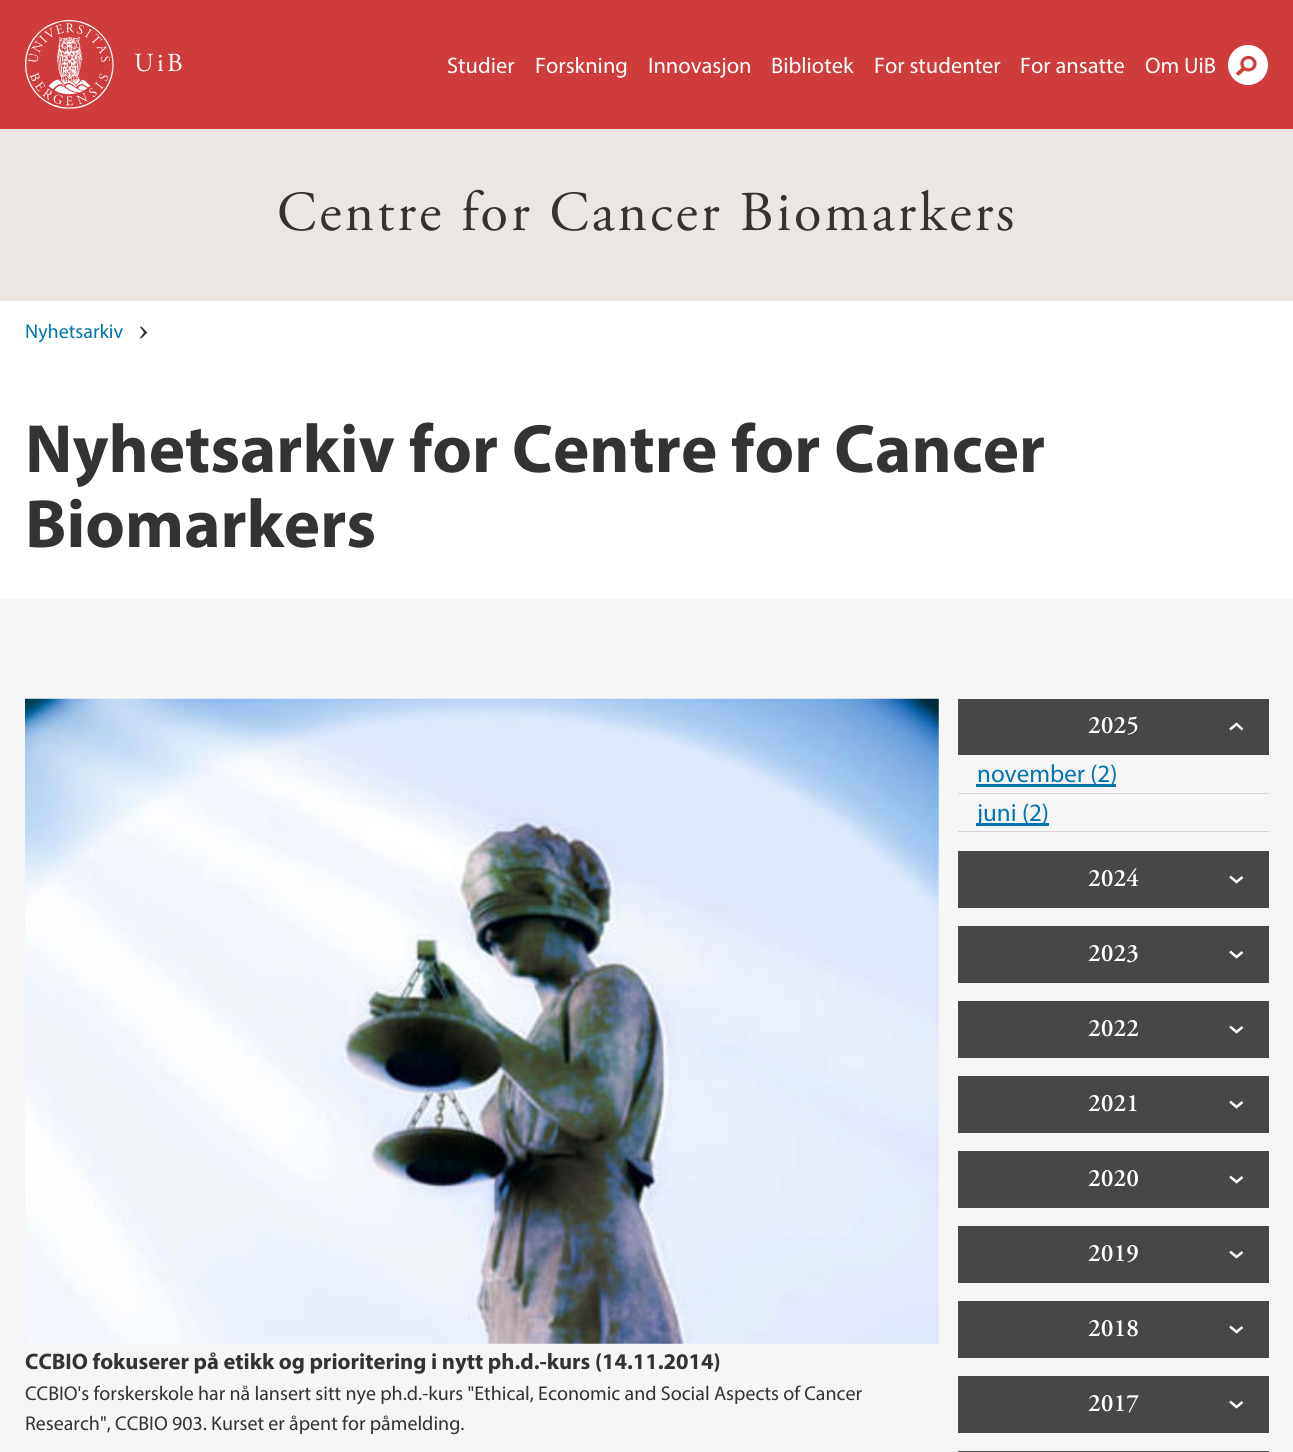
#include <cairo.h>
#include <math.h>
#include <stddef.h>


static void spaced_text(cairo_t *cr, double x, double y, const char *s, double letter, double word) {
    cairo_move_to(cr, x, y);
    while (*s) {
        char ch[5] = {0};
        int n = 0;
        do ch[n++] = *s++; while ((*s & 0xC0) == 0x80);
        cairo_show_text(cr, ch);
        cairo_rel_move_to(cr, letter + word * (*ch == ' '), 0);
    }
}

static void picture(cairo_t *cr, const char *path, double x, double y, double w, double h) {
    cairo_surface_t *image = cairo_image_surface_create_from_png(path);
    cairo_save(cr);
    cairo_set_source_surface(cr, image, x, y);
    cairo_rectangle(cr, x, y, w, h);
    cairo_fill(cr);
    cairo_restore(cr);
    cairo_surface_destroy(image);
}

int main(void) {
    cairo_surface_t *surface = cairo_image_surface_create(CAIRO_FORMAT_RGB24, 1293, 1452);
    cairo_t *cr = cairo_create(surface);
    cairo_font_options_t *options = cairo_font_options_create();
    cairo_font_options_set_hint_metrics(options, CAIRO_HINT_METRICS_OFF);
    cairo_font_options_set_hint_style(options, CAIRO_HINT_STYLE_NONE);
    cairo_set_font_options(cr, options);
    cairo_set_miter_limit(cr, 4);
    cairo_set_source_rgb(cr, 1, 1, 1);
    cairo_paint(cr);
    cairo_set_source_rgb(cr, 0.812, 0.235, 0.227);
    cairo_rectangle(cr, 0, 0, 1293, 129);
    cairo_fill(cr);
    picture(cr, "img1.png", 25, 20, 89, 89);
    cairo_select_font_face(cr, "Adobe Garamond", CAIRO_FONT_SLANT_NORMAL, CAIRO_FONT_WEIGHT_NORMAL);
    cairo_set_font_size(cr, 26);
    cairo_set_source_rgb(cr, 1, 1, 1);
    spaced_text(cr, 134, 71, "UiB", 3.5, 0);
    cairo_select_font_face(cr, "Myriad", CAIRO_FONT_SLANT_NORMAL, CAIRO_FONT_WEIGHT_NORMAL);
    cairo_set_font_size(cr, 22.5);
    cairo_move_to(cr, 447, 73);
    cairo_show_text(cr, "Studier");
    cairo_move_to(cr, 535, 73);
    cairo_show_text(cr, "Forskning");
    cairo_move_to(cr, 648, 73);
    cairo_show_text(cr, "Innovasjon");
    cairo_move_to(cr, 771, 73);
    cairo_show_text(cr, "Bibliotek");
    cairo_move_to(cr, 874, 73);
    cairo_show_text(cr, "For studenter");
    cairo_move_to(cr, 1020, 73);
    cairo_show_text(cr, "For ansatte");
    cairo_move_to(cr, 1145, 73);
    cairo_show_text(cr, "Om UiB");
    picture(cr, "img2.png", 1228, 45, 40, 40);
    cairo_set_source_rgb(cr, 0.918, 0.902, 0.886);
    cairo_rectangle(cr, 0, 129, 1293, 172);
    cairo_fill(cr);
    cairo_select_font_face(cr, "Adobe Garamond", CAIRO_FONT_SLANT_NORMAL, CAIRO_FONT_WEIGHT_NORMAL);
    cairo_set_font_size(cr, 56.25);
    cairo_set_source_rgb(cr, 0.2, 0.2, 0.2);
    spaced_text(cr, 277, 230, "Centre for Cancer Biomarkers", 3, 0);
    cairo_select_font_face(cr, "Myriad", CAIRO_FONT_SLANT_NORMAL, CAIRO_FONT_WEIGHT_NORMAL);
    cairo_set_font_size(cr, 20);
    cairo_set_source_rgb(cr, 0, 0.459, 0.686);
    cairo_move_to(cr, 25, 338);
    cairo_show_text(cr, "Nyhetsarkiv");
    picture(cr, "img3.png", 140, 326, 8, 13);
    cairo_select_font_face(cr, "Myriad", CAIRO_FONT_SLANT_NORMAL, CAIRO_FONT_WEIGHT_BOLD);
    cairo_set_font_size(cr, 68.75);
    cairo_set_source_rgb(cr, 0.2, 0.2, 0.2);
    cairo_move_to(cr, 25, 472);
    cairo_show_text(cr, "Nyhetsarkiv for Centre for Cancer");
    cairo_move_to(cr, 25, 547);
    cairo_show_text(cr, "Biomarkers");
    cairo_set_source_rgb(cr, 0.961, 0.961, 0.961);
    cairo_rectangle(cr, 0, 599, 1293, 853);
    cairo_fill(cr);
    picture(cr, "img4.png", 25, 698, 914, 646);
    cairo_set_font_size(cr, 22.5);
    cairo_set_source_rgb(cr, 0.2, 0.2, 0.2);
    cairo_move_to(cr, 25, 1369);
    cairo_show_text(cr, "CCBIO fokuserer på etikk og prioritering i nytt ph.d.-kurs (14.11.2014)");
    cairo_select_font_face(cr, "Myriad", CAIRO_FONT_SLANT_NORMAL, CAIRO_FONT_WEIGHT_NORMAL);
    cairo_set_font_size(cr, 20);
    cairo_move_to(cr, 25, 1400);
    cairo_show_text(cr, "CCBIO's forskerskole har nå lansert sitt nye ph.d.-kurs \"Ethical, Economic and Social Aspects of Cancer");
    cairo_move_to(cr, 25, 1430);
    cairo_show_text(cr, "Research\", CCBIO 903. Kurset er åpent for påmelding.");
    cairo_set_source_rgb(cr, 0.278, 0.278, 0.278);
    cairo_rectangle(cr, 958, 699, 311, 56);
    cairo_fill(cr);
    cairo_select_font_face(cr, "Adobe Garamond SemiBold", CAIRO_FONT_SLANT_NORMAL, CAIRO_FONT_WEIGHT_NORMAL);
    cairo_set_font_size(cr, 25);
    cairo_set_source_rgb(cr, 1, 1, 1);
    cairo_move_to(cr, 1088, 733);
    cairo_show_text(cr, "2025");
    cairo_new_path(cr);
    cairo_move_to(cr, 1230, 729.5);
    cairo_line_to(cr, 1236.5, 724);
    cairo_line_to(cr, 1242.5, 729.5);
    cairo_set_line_width(cr, 2.5);
    cairo_stroke(cr);
    cairo_set_source_rgb(cr, 0.835, 0.835, 0.835);
    cairo_rectangle(cr, 958, 793, 311, 1);
    cairo_fill(cr);
    cairo_set_source_rgb(cr, 0, 0.459, 0.686);
    cairo_rectangle(cr, 976, 784, 140, 3);
    cairo_fill(cr);
    cairo_select_font_face(cr, "Myriad", CAIRO_FONT_SLANT_NORMAL, CAIRO_FONT_WEIGHT_NORMAL);
    cairo_move_to(cr, 977, 782);
    cairo_show_text(cr, "november (2)");
    cairo_set_source_rgb(cr, 0.835, 0.835, 0.835);
    cairo_rectangle(cr, 958, 831, 311, 1);
    cairo_fill(cr);
    cairo_set_source_rgb(cr, 0, 0.459, 0.686);
    cairo_rectangle(cr, 976, 823, 73, 3);
    cairo_fill(cr);
    cairo_move_to(cr, 977, 821);
    cairo_show_text(cr, "juni (2)");
    cairo_set_source_rgb(cr, 0.278, 0.278, 0.278);
    cairo_rectangle(cr, 958, 851, 311, 57);
    cairo_fill(cr);
    cairo_select_font_face(cr, "Adobe Garamond SemiBold", CAIRO_FONT_SLANT_NORMAL, CAIRO_FONT_WEIGHT_NORMAL);
    cairo_set_source_rgb(cr, 1, 1, 1);
    cairo_move_to(cr, 1088, 886);
    cairo_show_text(cr, "2024");
    cairo_new_path(cr);
    cairo_move_to(cr, 1230, 876.5);
    cairo_line_to(cr, 1236.5, 882);
    cairo_line_to(cr, 1242.5, 877);
    cairo_stroke(cr);
    cairo_set_source_rgb(cr, 0.278, 0.278, 0.278);
    cairo_rectangle(cr, 958, 926, 311, 57);
    cairo_fill(cr);
    cairo_set_source_rgb(cr, 1, 1, 1);
    cairo_move_to(cr, 1088, 961);
    cairo_show_text(cr, "2023");
    cairo_new_path(cr);
    cairo_move_to(cr, 1230, 951.5);
    cairo_line_to(cr, 1236.5, 957);
    cairo_line_to(cr, 1242.5, 952);
    cairo_stroke(cr);
    cairo_set_source_rgb(cr, 0.278, 0.278, 0.278);
    cairo_rectangle(cr, 958, 1001, 311, 57);
    cairo_fill(cr);
    cairo_set_source_rgb(cr, 1, 1, 1);
    cairo_move_to(cr, 1088, 1036);
    cairo_show_text(cr, "2022");
    cairo_new_path(cr);
    cairo_move_to(cr, 1230, 1026.5);
    cairo_line_to(cr, 1236.5, 1032);
    cairo_line_to(cr, 1242.5, 1027);
    cairo_stroke(cr);
    cairo_set_source_rgb(cr, 0.278, 0.278, 0.278);
    cairo_rectangle(cr, 958, 1076, 311, 57);
    cairo_fill(cr);
    cairo_set_source_rgb(cr, 1, 1, 1);
    cairo_move_to(cr, 1088, 1111);
    cairo_show_text(cr, "2021");
    cairo_new_path(cr);
    cairo_move_to(cr, 1230, 1101.5);
    cairo_line_to(cr, 1236.5, 1107);
    cairo_line_to(cr, 1242.5, 1102);
    cairo_stroke(cr);
    cairo_set_source_rgb(cr, 0.278, 0.278, 0.278);
    cairo_rectangle(cr, 958, 1151, 311, 57);
    cairo_fill(cr);
    cairo_set_source_rgb(cr, 1, 1, 1);
    cairo_move_to(cr, 1088, 1186);
    cairo_show_text(cr, "2020");
    cairo_new_path(cr);
    cairo_move_to(cr, 1230, 1176.5);
    cairo_line_to(cr, 1236.5, 1182);
    cairo_line_to(cr, 1242.5, 1177);
    cairo_stroke(cr);
    cairo_set_source_rgb(cr, 0.278, 0.278, 0.278);
    cairo_rectangle(cr, 958, 1226, 311, 57);
    cairo_fill(cr);
    cairo_set_source_rgb(cr, 1, 1, 1);
    cairo_move_to(cr, 1088, 1261);
    cairo_show_text(cr, "2019");
    cairo_new_path(cr);
    cairo_move_to(cr, 1230, 1251.5);
    cairo_line_to(cr, 1236.5, 1257);
    cairo_line_to(cr, 1242.5, 1252);
    cairo_stroke(cr);
    cairo_set_source_rgb(cr, 0.278, 0.278, 0.278);
    cairo_rectangle(cr, 958, 1301, 311, 57);
    cairo_fill(cr);
    cairo_set_source_rgb(cr, 1, 1, 1);
    cairo_move_to(cr, 1088, 1336);
    cairo_show_text(cr, "2018");
    cairo_new_path(cr);
    cairo_move_to(cr, 1230, 1326.5);
    cairo_line_to(cr, 1236.5, 1332);
    cairo_line_to(cr, 1242.5, 1327);
    cairo_stroke(cr);
    cairo_set_source_rgb(cr, 0.278, 0.278, 0.278);
    cairo_rectangle(cr, 958, 1376, 311, 57);
    cairo_fill(cr);
    cairo_set_source_rgb(cr, 1, 1, 1);
    cairo_move_to(cr, 1088, 1411);
    cairo_show_text(cr, "2017");
    cairo_new_path(cr);
    cairo_move_to(cr, 1230, 1401.5);
    cairo_line_to(cr, 1236.5, 1407);
    cairo_line_to(cr, 1242.5, 1402);
    cairo_stroke(cr);
    cairo_set_source_rgb(cr, 0.278, 0.278, 0.278);
    cairo_rectangle(cr, 958, 1451, 311, 1);
    cairo_fill(cr);
    cairo_surface_write_to_png(surface, "page.png");
    cairo_font_options_destroy(options);
    cairo_destroy(cr);
    cairo_surface_destroy(surface);
    return 0;
}
